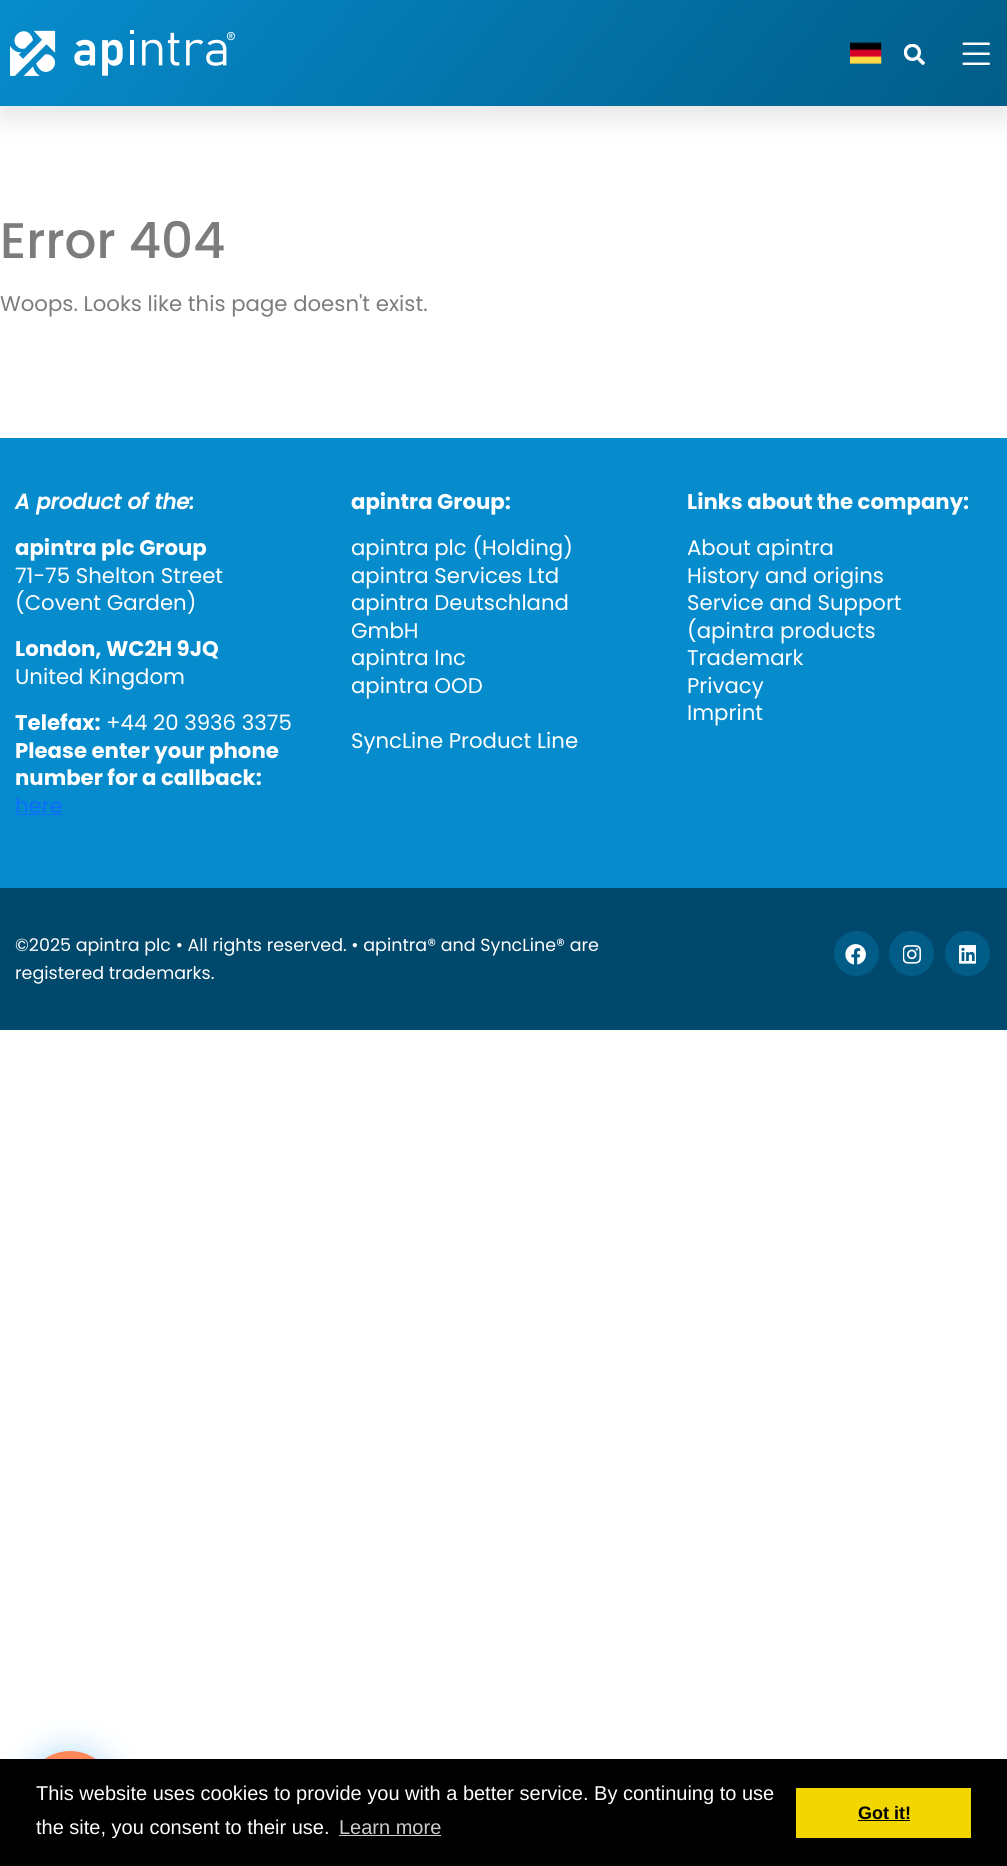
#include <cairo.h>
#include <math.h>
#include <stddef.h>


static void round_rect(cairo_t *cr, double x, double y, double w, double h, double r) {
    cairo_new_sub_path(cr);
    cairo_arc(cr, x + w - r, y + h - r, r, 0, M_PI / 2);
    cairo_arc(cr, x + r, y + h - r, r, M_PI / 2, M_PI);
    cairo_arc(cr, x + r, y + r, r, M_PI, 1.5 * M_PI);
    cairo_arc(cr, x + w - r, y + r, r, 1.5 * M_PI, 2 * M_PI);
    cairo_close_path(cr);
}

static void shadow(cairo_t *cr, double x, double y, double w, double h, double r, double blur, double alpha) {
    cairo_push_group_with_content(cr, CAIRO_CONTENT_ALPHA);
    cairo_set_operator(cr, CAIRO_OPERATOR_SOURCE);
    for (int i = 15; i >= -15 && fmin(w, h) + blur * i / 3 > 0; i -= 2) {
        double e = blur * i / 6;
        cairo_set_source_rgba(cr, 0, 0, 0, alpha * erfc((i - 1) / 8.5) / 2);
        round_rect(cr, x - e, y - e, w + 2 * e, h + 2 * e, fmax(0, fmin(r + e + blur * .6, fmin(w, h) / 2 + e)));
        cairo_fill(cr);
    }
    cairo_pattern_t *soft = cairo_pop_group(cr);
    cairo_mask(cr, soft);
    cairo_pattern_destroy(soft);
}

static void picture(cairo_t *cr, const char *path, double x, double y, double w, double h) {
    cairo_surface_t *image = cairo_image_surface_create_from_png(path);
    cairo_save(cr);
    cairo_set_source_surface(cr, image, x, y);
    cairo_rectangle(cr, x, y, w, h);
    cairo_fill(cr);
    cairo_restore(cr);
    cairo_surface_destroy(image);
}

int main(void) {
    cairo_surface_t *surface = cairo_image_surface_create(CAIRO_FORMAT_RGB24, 1007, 1866);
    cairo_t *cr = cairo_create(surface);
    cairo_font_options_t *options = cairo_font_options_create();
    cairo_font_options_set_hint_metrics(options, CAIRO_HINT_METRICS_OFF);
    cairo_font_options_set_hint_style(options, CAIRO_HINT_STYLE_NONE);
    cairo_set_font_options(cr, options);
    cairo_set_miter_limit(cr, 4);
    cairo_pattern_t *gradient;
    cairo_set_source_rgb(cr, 1, 1, 1);
    cairo_paint(cr);
    cairo_set_source_rgb(cr, 0, 0, 0);
    shadow(cr, 0, 13, 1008, 106, 0, 12.5, 0.1);
    gradient = cairo_pattern_create_linear(182, -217, 826, 323);
    cairo_pattern_add_color_stop_rgba(gradient, 0, 0.027, 0.549, 0.804, 1);
    cairo_pattern_add_color_stop_rgba(gradient, 1, 0.004, 0.361, 0.529, 1);
    cairo_set_source(cr, gradient);
    cairo_pattern_destroy(gradient);
    cairo_rectangle(cr, 0, 0, 1007, 106);
    cairo_fill(cr);
    picture(cr, "img1.png", 10, 30, 225, 46);
    picture(cr, "img2.png", 850, 42, 32, 22);
    picture(cr, "img3.png", 904, 44, 21, 21);
    picture(cr, "img4.png", 962, 42, 28, 23);
    cairo_select_font_face(cr, "Poppins Medium", CAIRO_FONT_SLANT_NORMAL, CAIRO_FONT_WEIGHT_NORMAL);
    cairo_set_font_size(cr, 50);
    cairo_set_source_rgb(cr, 0.486, 0.486, 0.482);
    cairo_move_to(cr, 0, 258);
    cairo_show_text(cr, "Error 404");
    cairo_select_font_face(cr, "Poppins", CAIRO_FONT_SLANT_NORMAL, CAIRO_FONT_WEIGHT_NORMAL);
    cairo_set_font_size(cr, 21.25);
    cairo_move_to(cr, 0, 311);
    cairo_show_text(cr, "Woops. Looks like this page doesn't exist.");
    cairo_set_source_rgb(cr, 0.027, 0.549, 0.804);
    cairo_rectangle(cr, 0, 438, 1007, 450);
    cairo_fill(cr);
    cairo_select_font_face(cr, "Poppins", CAIRO_FONT_SLANT_ITALIC, CAIRO_FONT_WEIGHT_BOLD);
    cairo_set_source_rgb(cr, 1, 1, 1);
    cairo_move_to(cr, 15, 509);
    cairo_show_text(cr, "A product of the:");
    cairo_select_font_face(cr, "Poppins", CAIRO_FONT_SLANT_NORMAL, CAIRO_FONT_WEIGHT_BOLD);
    cairo_move_to(cr, 15, 555);
    cairo_show_text(cr, "apintra plc Group");
    cairo_select_font_face(cr, "Poppins", CAIRO_FONT_SLANT_NORMAL, CAIRO_FONT_WEIGHT_NORMAL);
    cairo_move_to(cr, 15, 583);
    cairo_show_text(cr, "71-75 Shelton Street");
    cairo_move_to(cr, 15, 610);
    cairo_show_text(cr, "(Covent Garden)");
    cairo_select_font_face(cr, "Poppins", CAIRO_FONT_SLANT_NORMAL, CAIRO_FONT_WEIGHT_BOLD);
    cairo_move_to(cr, 15, 656);
    cairo_show_text(cr, "London, WC2H 9JQ");
    cairo_select_font_face(cr, "Poppins", CAIRO_FONT_SLANT_NORMAL, CAIRO_FONT_WEIGHT_NORMAL);
    cairo_move_to(cr, 15, 684);
    cairo_show_text(cr, "United Kingdom");
    cairo_select_font_face(cr, "Poppins", CAIRO_FONT_SLANT_NORMAL, CAIRO_FONT_WEIGHT_BOLD);
    cairo_move_to(cr, 15, 730);
    cairo_show_text(cr, "Telefax:");
    cairo_select_font_face(cr, "Poppins", CAIRO_FONT_SLANT_NORMAL, CAIRO_FONT_WEIGHT_NORMAL);
    cairo_move_to(cr, 106, 730);
    cairo_show_text(cr, "+44 20 3936 3375");
    cairo_select_font_face(cr, "Poppins", CAIRO_FONT_SLANT_NORMAL, CAIRO_FONT_WEIGHT_BOLD);
    cairo_move_to(cr, 15, 758);
    cairo_show_text(cr, "Please enter your phone");
    cairo_move_to(cr, 15, 785);
    cairo_show_text(cr, "number for a callback:");
    cairo_select_font_face(cr, "Poppins", CAIRO_FONT_SLANT_NORMAL, CAIRO_FONT_WEIGHT_NORMAL);
    cairo_set_source_rgb(cr, 0.051, 0.431, 0.992);
    cairo_move_to(cr, 15, 813);
    cairo_show_text(cr, "here");
    cairo_rectangle(cr, 15, 814, 48, 1);
    cairo_fill(cr);
    cairo_select_font_face(cr, "Poppins", CAIRO_FONT_SLANT_NORMAL, CAIRO_FONT_WEIGHT_BOLD);
    cairo_set_source_rgb(cr, 1, 1, 1);
    cairo_move_to(cr, 351, 509);
    cairo_show_text(cr, "apintra Group:");
    cairo_select_font_face(cr, "Poppins", CAIRO_FONT_SLANT_NORMAL, CAIRO_FONT_WEIGHT_NORMAL);
    cairo_move_to(cr, 351, 555);
    cairo_show_text(cr, "apintra plc (Holding)");
    cairo_move_to(cr, 351, 583);
    cairo_show_text(cr, "apintra Services Ltd");
    cairo_move_to(cr, 351, 610);
    cairo_show_text(cr, "apintra Deutschland");
    cairo_move_to(cr, 351, 638);
    cairo_show_text(cr, "GmbH");
    cairo_move_to(cr, 351, 665);
    cairo_show_text(cr, "apintra Inc");
    cairo_move_to(cr, 351, 693);
    cairo_show_text(cr, "apintra OOD");
    cairo_move_to(cr, 351, 748);
    cairo_show_text(cr, "SyncLine Product Line");
    cairo_select_font_face(cr, "Poppins", CAIRO_FONT_SLANT_NORMAL, CAIRO_FONT_WEIGHT_BOLD);
    cairo_move_to(cr, 687, 509);
    cairo_show_text(cr, "Links about the company:");
    cairo_select_font_face(cr, "Poppins", CAIRO_FONT_SLANT_NORMAL, CAIRO_FONT_WEIGHT_NORMAL);
    cairo_move_to(cr, 687, 555);
    cairo_show_text(cr, "About apintra");
    cairo_move_to(cr, 687, 583);
    cairo_show_text(cr, "History and origins");
    cairo_move_to(cr, 687, 610);
    cairo_show_text(cr, "Service and Support");
    cairo_move_to(cr, 687, 638);
    cairo_show_text(cr, "(apintra products");
    cairo_move_to(cr, 687, 665);
    cairo_show_text(cr, "Trademark");
    cairo_move_to(cr, 687, 693);
    cairo_show_text(cr, "Privacy");
    cairo_move_to(cr, 687, 720);
    cairo_show_text(cr, "Imprint");
    cairo_set_source_rgb(cr, 0, 0.286, 0.424);
    cairo_rectangle(cr, 0, 888, 1007, 142);
    cairo_fill(cr);
    cairo_set_font_size(cr, 17.5);
    cairo_set_source_rgb(cr, 1, 1, 1);
    cairo_move_to(cr, 15, 951);
    cairo_show_text(cr, "©2025 apintra plc • All rights reserved. • apintra® and SyncLine® are");
    cairo_move_to(cr, 15, 979);
    cairo_show_text(cr, "registered trademarks.");
    cairo_set_source_rgb(cr, 0.004, 0.361, 0.529);
    cairo_new_path(cr);
    cairo_arc(cr, 856.5, 953.5, 22.5, 0, 2 * M_PI);
    cairo_fill(cr);
    picture(cr, "img5.png", 845, 944, 21, 21);
    cairo_arc(cr, 911.5, 953.5, 22.5, 0, 2 * M_PI);
    cairo_fill(cr);
    picture(cr, "img6.png", 903, 945, 18, 19);
    cairo_arc(cr, 967.5, 953.5, 22.5, 0, 2 * M_PI);
    cairo_fill(cr);
    picture(cr, "img7.png", 959, 945, 17, 19);
    cairo_set_source_rgb(cr, 0.208, 0.643, 0.941);
    shadow(cr, 25, 1751, 90, 90, 45, 15.5, 0.35);
    cairo_set_source_rgb(cr, 1, 0.533, 0.353);
    cairo_arc(cr, 70, 1796, 45, 0, 2 * M_PI);
    cairo_fill(cr);
    cairo_set_source_rgb(cr, 0, 0, 0);
    cairo_rectangle(cr, 0, 1759, 1007, 107);
    cairo_fill(cr);
    cairo_select_font_face(cr, "Liberation Sans", CAIRO_FONT_SLANT_NORMAL, CAIRO_FONT_WEIGHT_NORMAL);
    cairo_set_font_size(cr, 20);
    cairo_set_source_rgb(cr, 1, 1, 1);
    cairo_move_to(cr, 36, 1800);
    cairo_show_text(cr, "This website uses cookies to provide you with a better service. By continuing to use");
    cairo_move_to(cr, 36, 1834);
    cairo_show_text(cr, "the site, you consent to their use.");
    cairo_set_source_rgb(cr, 0.8, 0.8, 0.8);
    cairo_move_to(cr, 339, 1834);
    cairo_show_text(cr, "Learn more");
    cairo_rectangle(cr, 339, 1835, 102, 1);
    cairo_fill(cr);
    cairo_set_source_rgb(cr, 0.945, 0.839, 0);
    cairo_rectangle(cr, 796, 1788, 175, 50);
    cairo_fill(cr);
    cairo_select_font_face(cr, "Liberation Sans", CAIRO_FONT_SLANT_NORMAL, CAIRO_FONT_WEIGHT_BOLD);
    cairo_set_font_size(cr, 18);
    cairo_set_source_rgb(cr, 0, 0, 0);
    cairo_move_to(cr, 858, 1819);
    cairo_show_text(cr, "Got it!");
    cairo_rectangle(cr, 858, 1820, 52, 1);
    cairo_fill(cr);
    cairo_surface_write_to_png(surface, "page.png");
    cairo_font_options_destroy(options);
    cairo_destroy(cr);
    cairo_surface_destroy(surface);
    return 0;
}
